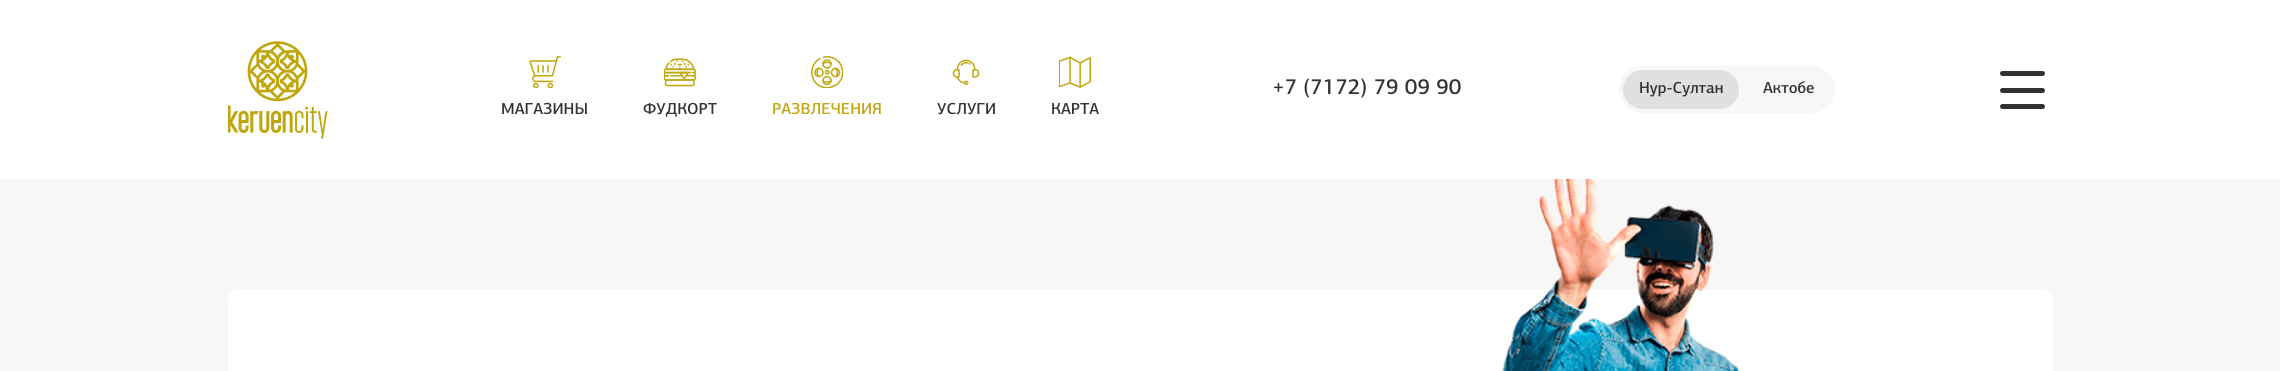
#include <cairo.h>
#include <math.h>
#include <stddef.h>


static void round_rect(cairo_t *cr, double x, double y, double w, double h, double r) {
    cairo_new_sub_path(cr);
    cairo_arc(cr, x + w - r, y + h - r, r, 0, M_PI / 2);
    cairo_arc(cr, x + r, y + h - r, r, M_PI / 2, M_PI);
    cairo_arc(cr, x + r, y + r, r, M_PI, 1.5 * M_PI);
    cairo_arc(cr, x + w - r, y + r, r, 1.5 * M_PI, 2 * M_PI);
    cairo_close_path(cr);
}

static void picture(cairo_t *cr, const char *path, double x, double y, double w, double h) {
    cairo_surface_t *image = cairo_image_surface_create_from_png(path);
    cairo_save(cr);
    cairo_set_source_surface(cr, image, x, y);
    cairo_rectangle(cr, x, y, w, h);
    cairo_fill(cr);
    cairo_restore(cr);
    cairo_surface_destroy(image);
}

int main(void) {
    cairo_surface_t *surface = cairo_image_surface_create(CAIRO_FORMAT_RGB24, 2280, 371);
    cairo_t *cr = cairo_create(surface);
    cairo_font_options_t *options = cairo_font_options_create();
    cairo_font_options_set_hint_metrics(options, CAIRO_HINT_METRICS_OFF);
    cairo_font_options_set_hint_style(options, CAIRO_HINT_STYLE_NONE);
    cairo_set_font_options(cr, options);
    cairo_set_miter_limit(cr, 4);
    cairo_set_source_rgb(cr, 0.965, 0.965, 0.965);
    cairo_paint(cr);
    cairo_set_source_rgb(cr, 1, 1, 1);
    cairo_rectangle(cr, 0, 0, 2280, 179);
    cairo_fill(cr);
    picture(cr, "img1.png", 228, 41, 100, 98);
    cairo_select_font_face(cr, "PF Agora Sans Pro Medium", CAIRO_FONT_SLANT_NORMAL, CAIRO_FONT_WEIGHT_NORMAL);
    cairo_set_font_size(cr, 22);
    cairo_set_source_rgb(cr, 0.196, 0.196, 0.196);
    cairo_move_to(cr, 1272, 94);
    cairo_show_text(cr, "+7 (7172) 79 09 90");
    cairo_set_source_rgb(cr, 0.965, 0.965, 0.965);
    round_rect(cr, 1619, 66, 216, 47, 23.5);
    cairo_fill(cr);
    cairo_set_source_rgb(cr, 0.878, 0.878, 0.878);
    round_rect(cr, 1623, 70, 116, 39, 19.5);
    cairo_fill(cr);
    cairo_set_font_size(cr, 16);
    cairo_set_source_rgb(cr, 0.196, 0.196, 0.196);
    cairo_move_to(cr, 1639, 93);
    cairo_show_text(cr, "Нур-Султан");
    cairo_move_to(cr, 1763, 93);
    cairo_show_text(cr, "Актобе");
    round_rect(cr, 2000, 71, 45, 5, 2.5);
    cairo_fill(cr);
    round_rect(cr, 2000, 88, 45, 5, 2.5);
    cairo_fill(cr);
    round_rect(cr, 2000, 104, 45, 5, 2.5);
    cairo_fill(cr);
    picture(cr, "img2.png", 529, 56, 32, 32);
    cairo_move_to(cr, 501, 114);
    cairo_show_text(cr, "МАГАЗИНЫ");
    picture(cr, "img3.png", 664, 58, 32, 29);
    cairo_move_to(cr, 643, 114);
    cairo_show_text(cr, "ФУДКОРТ");
    picture(cr, "img4.png", 811, 56, 32, 32);
    cairo_set_source_rgb(cr, 0.749, 0.651, 0.047);
    cairo_move_to(cr, 772, 114);
    cairo_show_text(cr, "РАЗВЛЕЧЕНИЯ");
    picture(cr, "img5.png", 952, 59, 28, 26);
    cairo_set_source_rgb(cr, 0.196, 0.196, 0.196);
    cairo_move_to(cr, 937, 114);
    cairo_show_text(cr, "УСЛУГИ");
    picture(cr, "img6.png", 1059, 56, 32, 32);
    cairo_move_to(cr, 1051, 114);
    cairo_show_text(cr, "КАРТА");
    cairo_set_source_rgb(cr, 1, 1, 1);
    round_rect(cr, 228, 289, 1825, 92, 10);
    cairo_fill(cr);
    picture(cr, "img7.png", 1502, 179, 237, 192);
    cairo_surface_write_to_png(surface, "page.png");
    cairo_font_options_destroy(options);
    cairo_destroy(cr);
    cairo_surface_destroy(surface);
    return 0;
}
